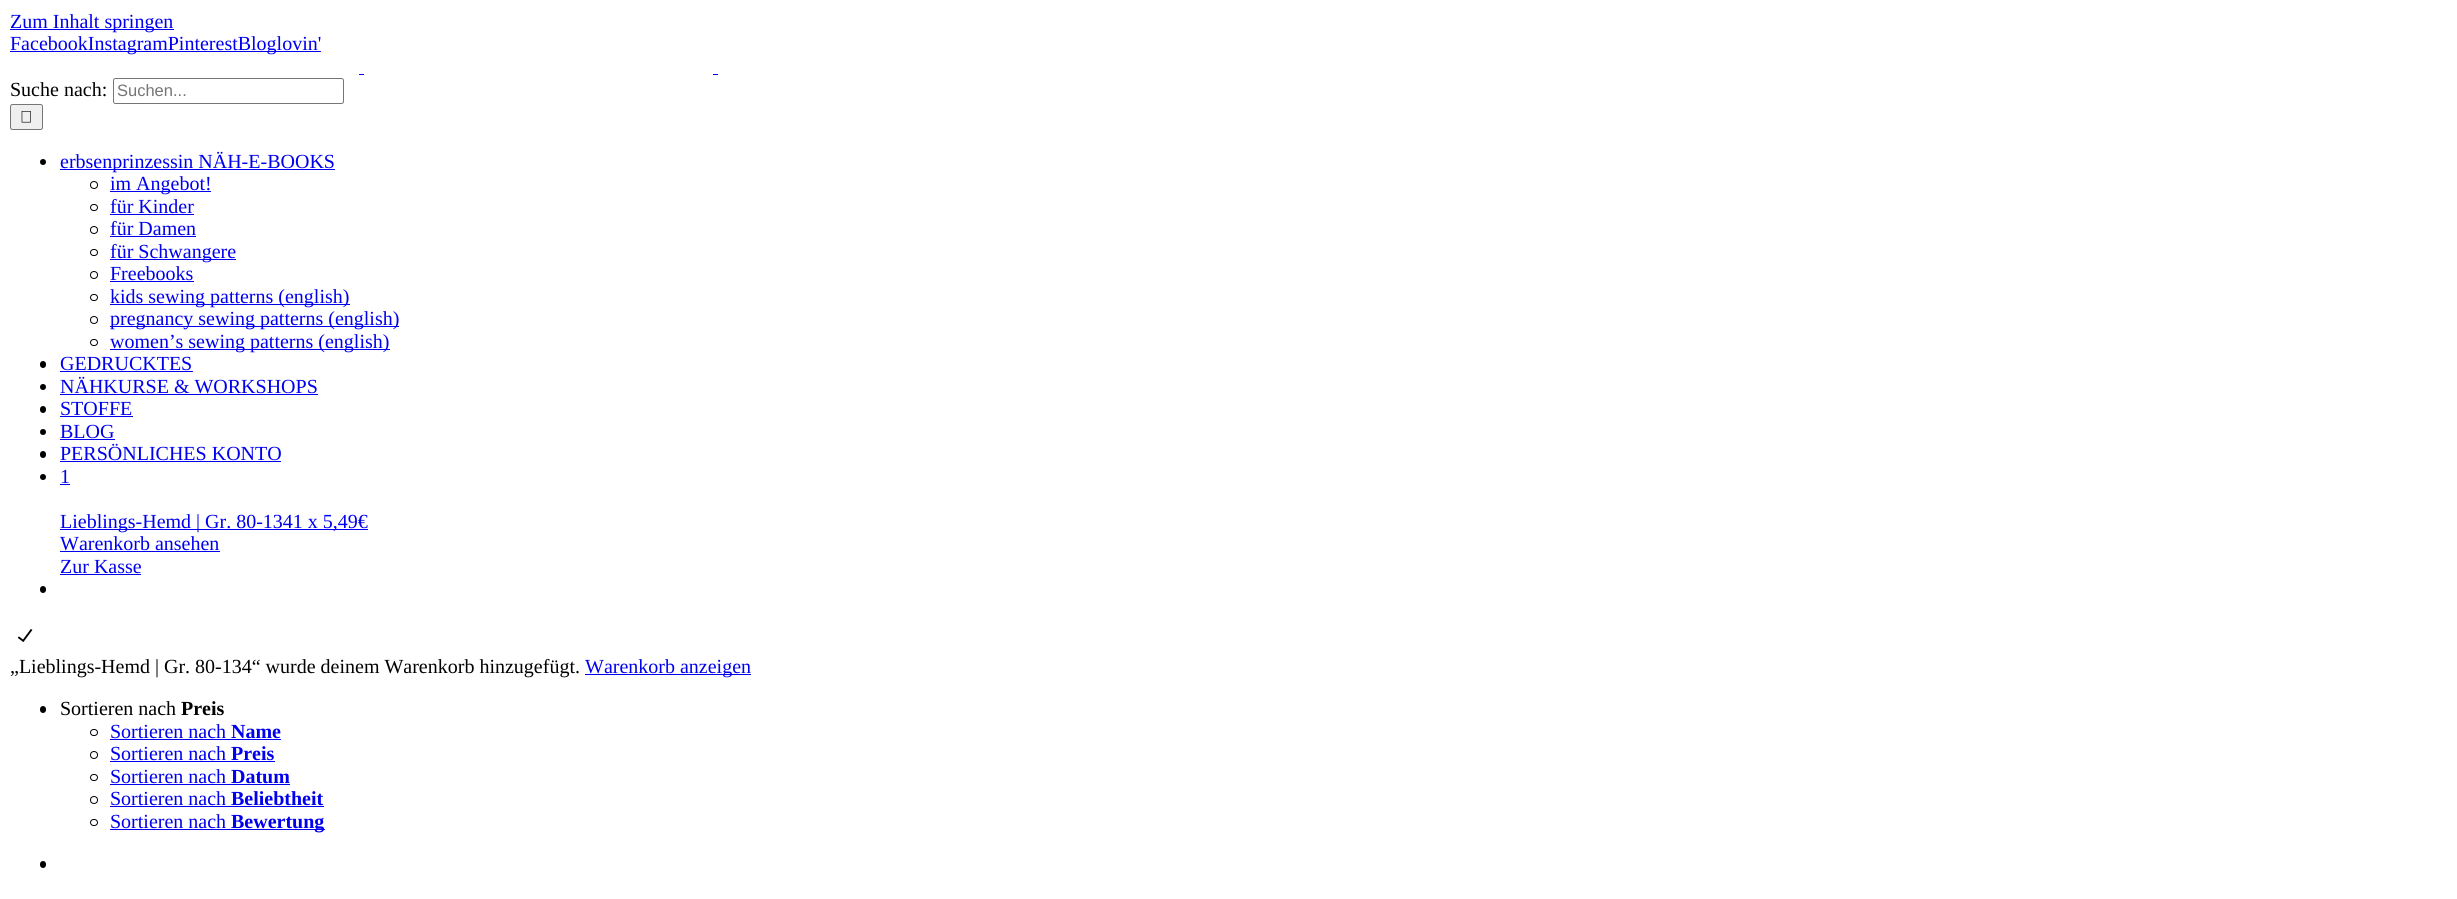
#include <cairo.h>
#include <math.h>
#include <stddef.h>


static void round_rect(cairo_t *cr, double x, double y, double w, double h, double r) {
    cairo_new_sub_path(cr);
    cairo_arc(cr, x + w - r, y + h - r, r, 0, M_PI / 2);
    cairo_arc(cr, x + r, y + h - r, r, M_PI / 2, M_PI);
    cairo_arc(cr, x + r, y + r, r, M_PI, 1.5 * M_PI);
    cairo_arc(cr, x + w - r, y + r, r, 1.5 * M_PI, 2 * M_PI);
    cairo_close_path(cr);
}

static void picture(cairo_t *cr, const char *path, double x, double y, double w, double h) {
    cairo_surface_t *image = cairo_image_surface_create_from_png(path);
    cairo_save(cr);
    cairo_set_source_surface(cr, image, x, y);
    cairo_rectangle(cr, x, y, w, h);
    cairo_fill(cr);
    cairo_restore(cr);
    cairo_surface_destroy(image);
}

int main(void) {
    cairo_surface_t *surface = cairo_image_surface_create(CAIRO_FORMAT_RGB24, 2457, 899);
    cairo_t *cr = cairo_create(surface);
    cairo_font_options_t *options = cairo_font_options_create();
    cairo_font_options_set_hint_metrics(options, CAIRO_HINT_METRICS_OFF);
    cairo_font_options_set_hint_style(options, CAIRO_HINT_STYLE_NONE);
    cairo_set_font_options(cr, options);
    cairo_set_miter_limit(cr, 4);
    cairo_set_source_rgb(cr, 1, 1, 1);
    cairo_paint(cr);
    cairo_set_source_rgb(cr, 0, 0, 0.933);
    cairo_rectangle(cr, 10, 29, 164, 1);
    cairo_fill(cr);
    cairo_select_font_face(cr, "Liberation Serif", CAIRO_FONT_SLANT_NORMAL, CAIRO_FONT_WEIGHT_NORMAL);
    cairo_set_font_size(cr, 20);
    cairo_move_to(cr, 10, 28);
    cairo_show_text(cr, "Zum Inhalt springen");
    cairo_rectangle(cr, 10, 51, 311, 1);
    cairo_fill(cr);
    cairo_move_to(cr, 10, 50);
    cairo_show_text(cr, "FacebookInstagramPinterestBloglovin'");
    cairo_rectangle(cr, 359, 74, 5, 1);
    cairo_fill(cr);
    cairo_rectangle(cr, 713, 74, 5, 1);
    cairo_fill(cr);
    cairo_set_source_rgb(cr, 0, 0, 0);
    cairo_move_to(cr, 10, 96);
    cairo_show_text(cr, "Suche nach:");
    round_rect(cr, 113.5, 78.5, 230, 25, 2);
    cairo_set_source_rgb(cr, 0.463, 0.463, 0.463);
    cairo_set_line_width(cr, 1);
    cairo_stroke(cr);
    cairo_select_font_face(cr, "Liberation Sans", CAIRO_FONT_SLANT_NORMAL, CAIRO_FONT_WEIGHT_NORMAL);
    cairo_set_font_size(cr, 16.5);
    cairo_set_source_rgb(cr, 0.459, 0.459, 0.459);
    cairo_move_to(cr, 117, 96);
    cairo_show_text(cr, "Suchen...");
    cairo_set_source_rgb(cr, 0.937, 0.937, 0.937);
    round_rect(cr, 10.5, 104.5, 32, 25, 2);
    cairo_fill_preserve(cr);
    cairo_set_source_rgb(cr, 0.463, 0.463, 0.463);
    cairo_stroke(cr);
    picture(cr, "img1.png", 21, 111, 10, 12);
    cairo_set_source_rgb(cr, 0, 0, 0);
    cairo_arc(cr, 43, 162, 3, 0, 2 * M_PI);
    cairo_fill(cr);
    cairo_set_source_rgb(cr, 0, 0, 0.933);
    cairo_rectangle(cr, 60, 169, 275, 1);
    cairo_fill(cr);
    cairo_select_font_face(cr, "Liberation Serif", CAIRO_FONT_SLANT_NORMAL, CAIRO_FONT_WEIGHT_NORMAL);
    cairo_set_font_size(cr, 20);
    cairo_move_to(cr, 60, 168);
    cairo_show_text(cr, "erbsenprinzessin NÄH-E-BOOKS");
    cairo_new_path(cr);
    cairo_arc(cr, 94, 185, 3.5, 0, 2 * M_PI);
    cairo_set_source_rgb(cr, 0, 0, 0);
    cairo_stroke(cr);
    cairo_set_source_rgb(cr, 0, 0, 0.933);
    cairo_rectangle(cr, 110, 191, 101, 1);
    cairo_fill(cr);
    cairo_move_to(cr, 110, 190);
    cairo_show_text(cr, "im Angebot!");
    round_rect(cr, 90.5, 204.5, 7, 6, 3);
    cairo_set_source_rgb(cr, 0, 0, 0);
    cairo_stroke(cr);
    cairo_set_source_rgb(cr, 0, 0, 0.933);
    cairo_move_to(cr, 110, 213);
    cairo_show_text(cr, "für Kinder");
    cairo_rectangle(cr, 110, 214, 84, 1);
    cairo_fill(cr);
    cairo_arc(cr, 94, 230, 3.5, 0, 2 * M_PI);
    cairo_set_source_rgb(cr, 0, 0, 0);
    cairo_stroke(cr);
    cairo_set_source_rgb(cr, 0, 0, 0.933);
    cairo_move_to(cr, 110, 235);
    cairo_show_text(cr, "für Damen");
    cairo_rectangle(cr, 110, 236, 86, 1);
    cairo_fill(cr);
    round_rect(cr, 90.5, 249.5, 7, 6, 3);
    cairo_set_source_rgb(cr, 0, 0, 0);
    cairo_stroke(cr);
    cairo_set_source_rgb(cr, 0, 0, 0.933);
    cairo_rectangle(cr, 110, 259, 126, 1);
    cairo_fill(cr);
    cairo_move_to(cr, 110, 258);
    cairo_show_text(cr, "für Schwangere");
    cairo_new_path(cr);
    cairo_arc(cr, 94, 275, 3.5, 0, 2 * M_PI);
    cairo_set_source_rgb(cr, 0, 0, 0);
    cairo_stroke(cr);
    cairo_set_source_rgb(cr, 0, 0, 0.933);
    cairo_move_to(cr, 110, 280);
    cairo_show_text(cr, "Freebooks");
    cairo_rectangle(cr, 110, 281, 84, 1);
    cairo_fill(cr);
    round_rect(cr, 90.5, 294.5, 7, 6, 3);
    cairo_set_source_rgb(cr, 0, 0, 0);
    cairo_stroke(cr);
    cairo_set_source_rgb(cr, 0, 0, 0.933);
    cairo_rectangle(cr, 110, 304, 240, 1);
    cairo_fill(cr);
    cairo_move_to(cr, 110, 303);
    cairo_show_text(cr, "kids sewing patterns (english)");
    cairo_new_path(cr);
    cairo_arc(cr, 94, 320, 3.5, 0, 2 * M_PI);
    cairo_set_source_rgb(cr, 0, 0, 0);
    cairo_stroke(cr);
    cairo_set_source_rgb(cr, 0, 0, 0.933);
    cairo_rectangle(cr, 110, 326, 289, 1);
    cairo_fill(cr);
    cairo_move_to(cr, 110, 325);
    cairo_show_text(cr, "pregnancy sewing patterns (english)");
    round_rect(cr, 90.5, 339.5, 7, 6, 3);
    cairo_set_source_rgb(cr, 0, 0, 0);
    cairo_stroke(cr);
    cairo_set_source_rgb(cr, 0, 0, 0.933);
    cairo_rectangle(cr, 110, 349, 280, 1);
    cairo_fill(cr);
    cairo_move_to(cr, 110, 348);
    cairo_show_text(cr, "women’s sewing patterns (english)");
    cairo_set_source_rgb(cr, 0, 0, 0);
    round_rect(cr, 40, 361, 6, 7, 3);
    cairo_fill(cr);
    cairo_set_source_rgb(cr, 0, 0, 0.933);
    cairo_move_to(cr, 60, 370);
    cairo_show_text(cr, "GEDRUCKTES");
    cairo_rectangle(cr, 60, 371, 133, 1);
    cairo_fill(cr);
    cairo_set_source_rgb(cr, 0, 0, 0);
    cairo_arc(cr, 43, 387, 3, 0, 2 * M_PI);
    cairo_fill(cr);
    cairo_set_source_rgb(cr, 0, 0, 0.933);
    cairo_move_to(cr, 60, 393);
    cairo_show_text(cr, "NÄHKURSE & WORKSHOPS");
    cairo_rectangle(cr, 60, 394, 258, 1);
    cairo_fill(cr);
    cairo_set_source_rgb(cr, 0, 0, 0);
    round_rect(cr, 40, 406, 6, 7, 3);
    cairo_fill(cr);
    cairo_set_source_rgb(cr, 0, 0, 0.933);
    cairo_move_to(cr, 60, 415);
    cairo_show_text(cr, "STOFFE");
    cairo_rectangle(cr, 60, 416, 73, 1);
    cairo_fill(cr);
    cairo_set_source_rgb(cr, 0, 0, 0);
    cairo_arc(cr, 43, 432, 3, 0, 2 * M_PI);
    cairo_fill(cr);
    cairo_set_source_rgb(cr, 0, 0, 0.933);
    cairo_move_to(cr, 60, 438);
    cairo_show_text(cr, "BLOG");
    cairo_rectangle(cr, 60, 439, 55, 1);
    cairo_fill(cr);
    cairo_set_source_rgb(cr, 0, 0, 0);
    round_rect(cr, 40, 451, 6, 7, 3);
    cairo_fill(cr);
    cairo_set_source_rgb(cr, 0, 0, 0.933);
    cairo_move_to(cr, 60, 460);
    cairo_show_text(cr, "PERSÖNLICHES KONTO");
    cairo_rectangle(cr, 60, 461, 221, 1);
    cairo_fill(cr);
    cairo_set_source_rgb(cr, 0, 0, 0);
    cairo_arc(cr, 43, 477, 3, 0, 2 * M_PI);
    cairo_fill(cr);
    cairo_set_source_rgb(cr, 0, 0, 0.933);
    cairo_move_to(cr, 60, 483);
    cairo_show_text(cr, "1");
    cairo_rectangle(cr, 60, 484, 10, 1);
    cairo_fill(cr);
    cairo_rectangle(cr, 60, 529, 308, 1);
    cairo_fill(cr);
    cairo_move_to(cr, 60, 528);
    cairo_show_text(cr, "Lieblings-Hemd | Gr. 80-1341 x 5,49€");
    cairo_move_to(cr, 60, 550);
    cairo_show_text(cr, "Warenkorb ansehen");
    cairo_rectangle(cr, 60, 551, 160, 1);
    cairo_fill(cr);
    cairo_move_to(cr, 60, 573);
    cairo_show_text(cr, "Zur Kasse");
    cairo_rectangle(cr, 60, 574, 81, 1);
    cairo_fill(cr);
    cairo_set_source_rgb(cr, 0, 0, 0);
    round_rect(cr, 40, 586, 6, 7, 3);
    cairo_fill(cr);
    picture(cr, "img2.png", 17, 629, 16, 13);
    cairo_move_to(cr, 10, 673);
    cairo_show_text(cr, "„Lieblings-Hemd | Gr. 80-134“ wurde deinem Warenkorb hinzugefügt.");
    cairo_set_source_rgb(cr, 0, 0, 0.933);
    cairo_rectangle(cr, 585, 674, 166, 1);
    cairo_fill(cr);
    cairo_move_to(cr, 585, 673);
    cairo_show_text(cr, "Warenkorb anzeigen");
    cairo_set_source_rgb(cr, 0, 0, 0);
    round_rect(cr, 40, 706, 6, 7, 3);
    cairo_fill(cr);
    cairo_move_to(cr, 60, 715);
    cairo_show_text(cr, "Sortieren nach");
    cairo_select_font_face(cr, "Liberation Serif", CAIRO_FONT_SLANT_NORMAL, CAIRO_FONT_WEIGHT_BOLD);
    cairo_move_to(cr, 181, 715);
    cairo_show_text(cr, "Preis");
    round_rect(cr, 90.5, 729.5, 7, 6, 3);
    cairo_stroke(cr);
    cairo_select_font_face(cr, "Liberation Serif", CAIRO_FONT_SLANT_NORMAL, CAIRO_FONT_WEIGHT_NORMAL);
    cairo_set_source_rgb(cr, 0, 0, 0.933);
    cairo_move_to(cr, 110, 738);
    cairo_show_text(cr, "Sortieren nach");
    cairo_rectangle(cr, 110, 739, 171, 1);
    cairo_fill(cr);
    cairo_select_font_face(cr, "Liberation Serif", CAIRO_FONT_SLANT_NORMAL, CAIRO_FONT_WEIGHT_BOLD);
    cairo_move_to(cr, 231, 738);
    cairo_show_text(cr, "Name");
    cairo_new_path(cr);
    cairo_arc(cr, 94, 755, 3.5, 0, 2 * M_PI);
    cairo_set_source_rgb(cr, 0, 0, 0);
    cairo_stroke(cr);
    cairo_select_font_face(cr, "Liberation Serif", CAIRO_FONT_SLANT_NORMAL, CAIRO_FONT_WEIGHT_NORMAL);
    cairo_set_source_rgb(cr, 0, 0, 0.933);
    cairo_move_to(cr, 110, 760);
    cairo_show_text(cr, "Sortieren nach");
    cairo_rectangle(cr, 110, 761, 165, 1);
    cairo_fill(cr);
    cairo_select_font_face(cr, "Liberation Serif", CAIRO_FONT_SLANT_NORMAL, CAIRO_FONT_WEIGHT_BOLD);
    cairo_move_to(cr, 231, 760);
    cairo_show_text(cr, "Preis");
    round_rect(cr, 90.5, 774.5, 7, 6, 3);
    cairo_set_source_rgb(cr, 0, 0, 0);
    cairo_stroke(cr);
    cairo_select_font_face(cr, "Liberation Serif", CAIRO_FONT_SLANT_NORMAL, CAIRO_FONT_WEIGHT_NORMAL);
    cairo_set_source_rgb(cr, 0, 0, 0.933);
    cairo_move_to(cr, 110, 783);
    cairo_show_text(cr, "Sortieren nach");
    cairo_rectangle(cr, 110, 784, 180, 1);
    cairo_fill(cr);
    cairo_select_font_face(cr, "Liberation Serif", CAIRO_FONT_SLANT_NORMAL, CAIRO_FONT_WEIGHT_BOLD);
    cairo_move_to(cr, 231, 783);
    cairo_show_text(cr, "Datum");
    cairo_new_path(cr);
    cairo_arc(cr, 94, 800, 3.5, 0, 2 * M_PI);
    cairo_set_source_rgb(cr, 0, 0, 0);
    cairo_stroke(cr);
    cairo_select_font_face(cr, "Liberation Serif", CAIRO_FONT_SLANT_NORMAL, CAIRO_FONT_WEIGHT_NORMAL);
    cairo_set_source_rgb(cr, 0, 0, 0.933);
    cairo_move_to(cr, 110, 805);
    cairo_show_text(cr, "Sortieren nach");
    cairo_rectangle(cr, 110, 806, 214, 1);
    cairo_fill(cr);
    cairo_select_font_face(cr, "Liberation Serif", CAIRO_FONT_SLANT_NORMAL, CAIRO_FONT_WEIGHT_BOLD);
    cairo_move_to(cr, 231, 805);
    cairo_show_text(cr, "Beliebtheit");
    round_rect(cr, 90.5, 819.5, 7, 6, 3);
    cairo_set_source_rgb(cr, 0, 0, 0);
    cairo_stroke(cr);
    cairo_select_font_face(cr, "Liberation Serif", CAIRO_FONT_SLANT_NORMAL, CAIRO_FONT_WEIGHT_NORMAL);
    cairo_set_source_rgb(cr, 0, 0, 0.933);
    cairo_move_to(cr, 110, 828);
    cairo_show_text(cr, "Sortieren nach");
    cairo_rectangle(cr, 110, 829, 215, 1);
    cairo_fill(cr);
    cairo_select_font_face(cr, "Liberation Serif", CAIRO_FONT_SLANT_NORMAL, CAIRO_FONT_WEIGHT_BOLD);
    cairo_move_to(cr, 231, 828);
    cairo_show_text(cr, "Bewertung");
    cairo_set_source_rgb(cr, 0, 0, 0);
    round_rect(cr, 40, 861, 6, 7, 3);
    cairo_fill(cr);
    cairo_surface_write_to_png(surface, "page.png");
    cairo_font_options_destroy(options);
    cairo_destroy(cr);
    cairo_surface_destroy(surface);
    return 0;
}
